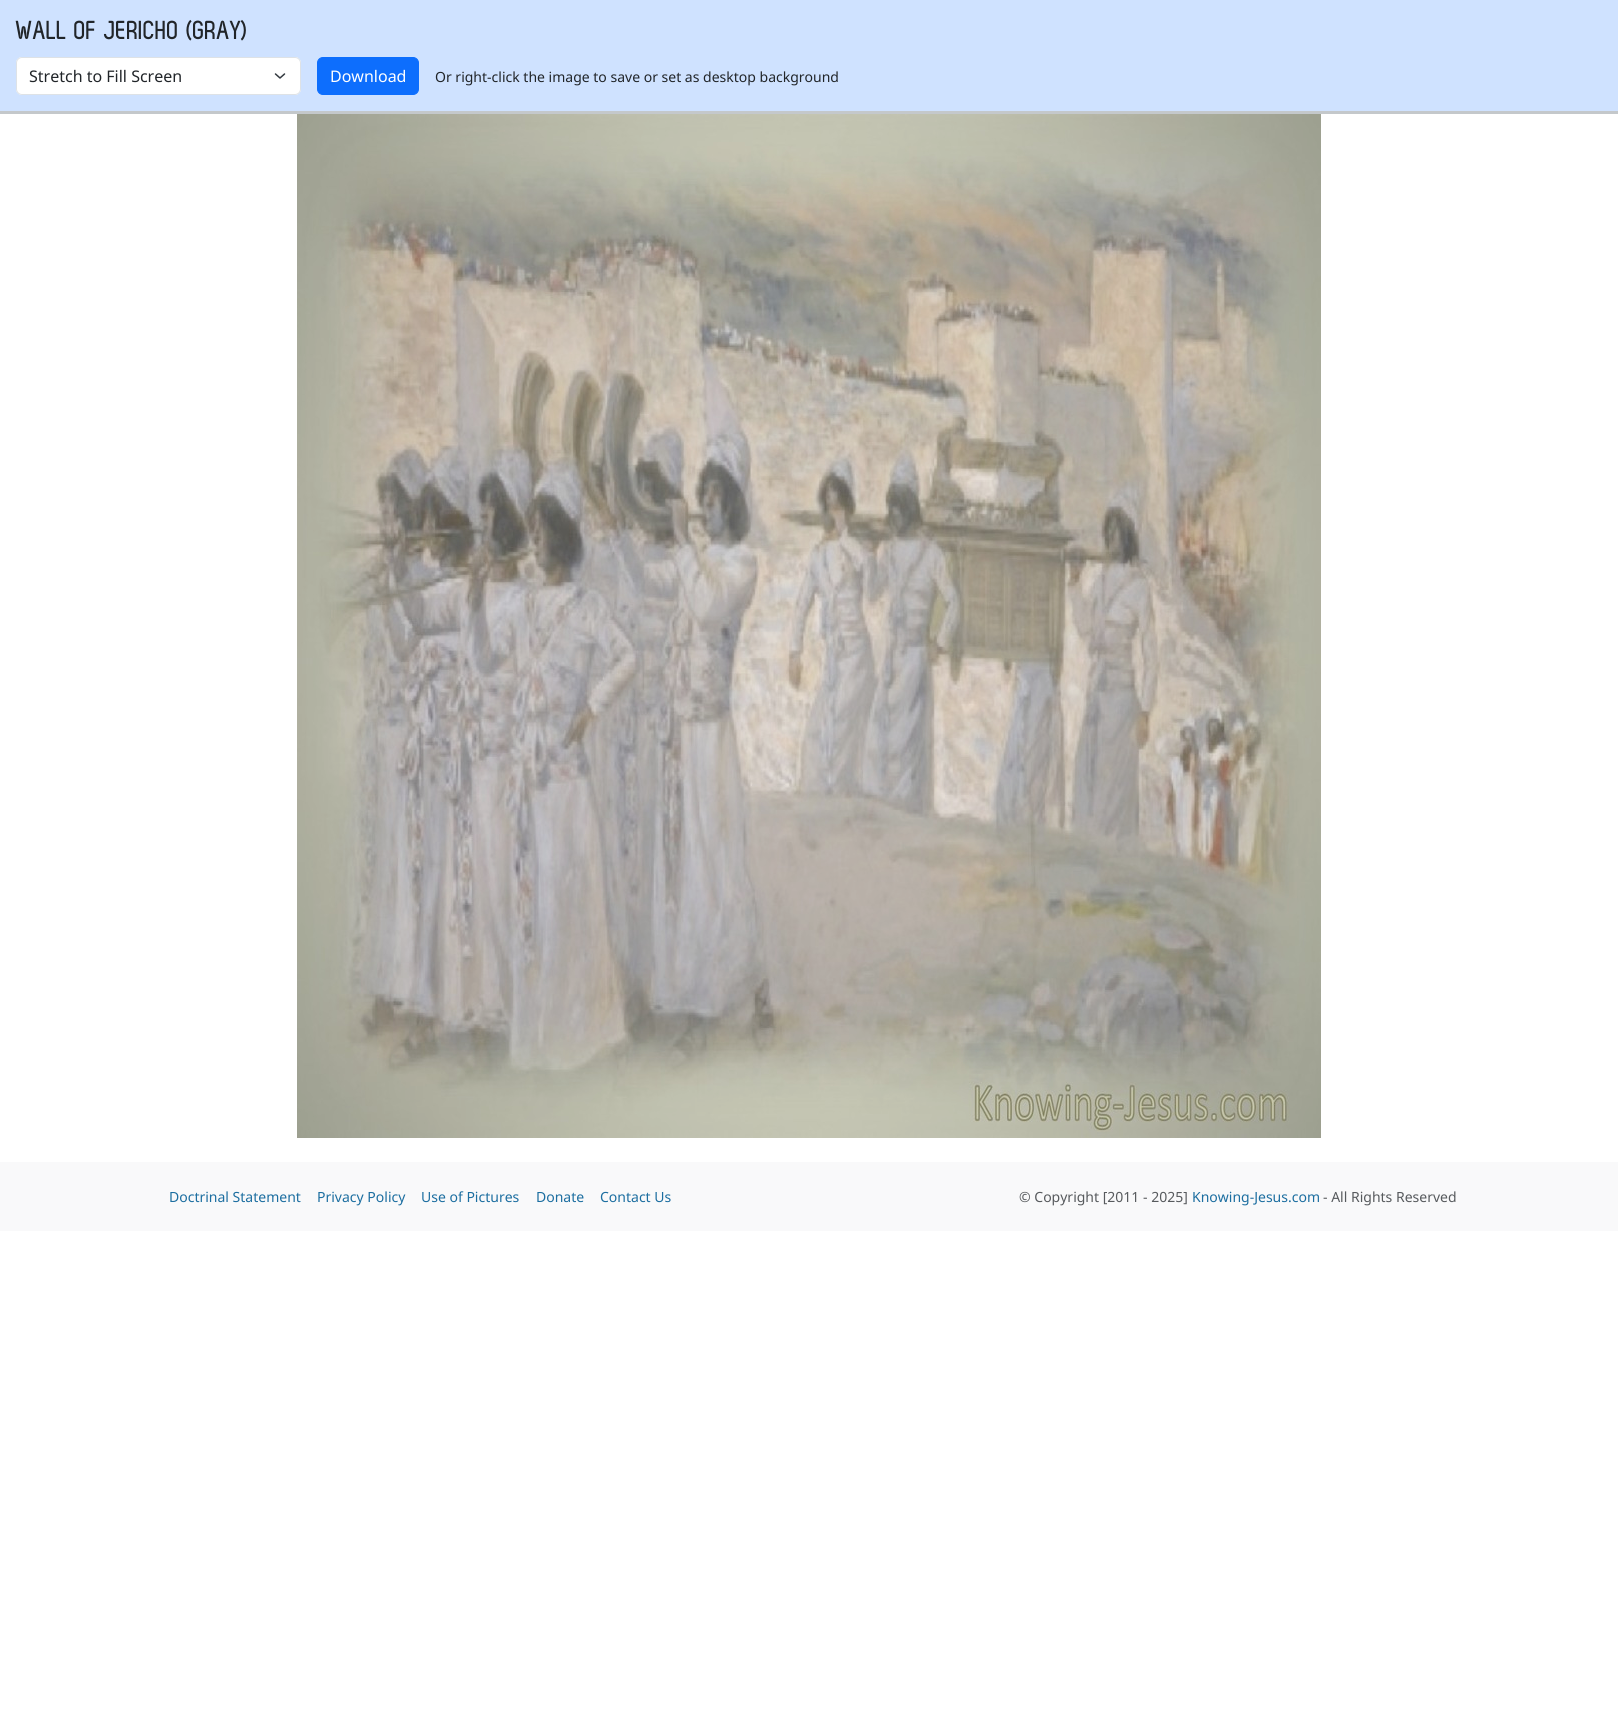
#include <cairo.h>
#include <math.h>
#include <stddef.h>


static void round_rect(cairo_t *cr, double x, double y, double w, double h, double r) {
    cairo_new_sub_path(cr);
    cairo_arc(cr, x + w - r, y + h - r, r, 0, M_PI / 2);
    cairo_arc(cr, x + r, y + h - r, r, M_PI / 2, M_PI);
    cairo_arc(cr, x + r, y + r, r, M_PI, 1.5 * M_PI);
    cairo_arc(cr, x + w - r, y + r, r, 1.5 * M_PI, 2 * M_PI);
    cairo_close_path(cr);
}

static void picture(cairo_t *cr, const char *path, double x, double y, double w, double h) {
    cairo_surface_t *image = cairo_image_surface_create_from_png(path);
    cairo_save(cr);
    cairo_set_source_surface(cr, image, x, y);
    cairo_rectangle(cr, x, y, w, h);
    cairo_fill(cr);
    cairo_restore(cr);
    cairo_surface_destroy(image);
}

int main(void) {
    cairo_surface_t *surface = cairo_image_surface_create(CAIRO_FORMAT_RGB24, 1618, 1713);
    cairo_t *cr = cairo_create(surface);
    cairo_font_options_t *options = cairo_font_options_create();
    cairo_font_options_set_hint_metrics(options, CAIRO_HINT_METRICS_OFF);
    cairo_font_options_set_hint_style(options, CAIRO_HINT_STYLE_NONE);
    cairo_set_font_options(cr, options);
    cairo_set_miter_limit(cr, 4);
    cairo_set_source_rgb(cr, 1, 1, 1);
    cairo_paint(cr);
    cairo_set_source_rgb(cr, 0.812, 0.886, 1);
    cairo_rectangle(cr, 0, 0, 1618, 111);
    cairo_fill(cr);
    cairo_set_source_rgb(cr, 0.769, 0.784, 0.796);
    cairo_rectangle(cr, 0, 111, 1618, 3);
    cairo_fill(cr);
    cairo_select_font_face(cr, "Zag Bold", CAIRO_FONT_SLANT_NORMAL, CAIRO_FONT_WEIGHT_BOLD);
    cairo_set_font_size(cr, 26);
    cairo_set_source_rgb(cr, 0.129, 0.145, 0.161);
    cairo_move_to(cr, 16, 39);
    cairo_show_text(cr, "WALL OF JERICHO (GRAY)");
    cairo_set_source_rgb(cr, 1, 1, 1);
    round_rect(cr, 16, 57, 285, 38, 6);
    cairo_fill(cr);
    cairo_new_path(cr);
    cairo_move_to(cr, 275.5, 74);
    cairo_line_to(cr, 280, 78);
    cairo_line_to(cr, 284.5, 74);
    cairo_set_source_rgb(cr, 0.204, 0.227, 0.251);
    cairo_set_line_width(cr, 1.5);
    cairo_set_line_cap(cr, CAIRO_LINE_CAP_ROUND);
    cairo_set_line_join(cr, CAIRO_LINE_JOIN_ROUND);
    cairo_stroke(cr);
    round_rect(cr, 16.5, 57.5, 284, 37, 5.5);
    cairo_set_source_rgb(cr, 0.871, 0.886, 0.902);
    cairo_set_line_width(cr, 1);
    cairo_set_line_cap(cr, CAIRO_LINE_CAP_BUTT);
    cairo_set_line_join(cr, CAIRO_LINE_JOIN_MITER);
    cairo_stroke(cr);
    cairo_select_font_face(cr, "Noto Sans", CAIRO_FONT_SLANT_NORMAL, CAIRO_FONT_WEIGHT_NORMAL);
    cairo_set_font_size(cr, 16);
    cairo_set_source_rgb(cr, 0.129, 0.145, 0.161);
    cairo_move_to(cr, 29, 82);
    cairo_show_text(cr, "Stretch to Fill Screen");
    cairo_set_source_rgb(cr, 0.051, 0.431, 0.992);
    round_rect(cr, 317.5, 57.5, 101, 37, 5.5);
    cairo_fill_preserve(cr);
    cairo_stroke(cr);
    cairo_set_source_rgb(cr, 1, 1, 1);
    cairo_move_to(cr, 330, 82);
    cairo_show_text(cr, "Download");
    cairo_set_font_size(cr, 14);
    cairo_set_source_rgb(cr, 0.129, 0.145, 0.161);
    cairo_move_to(cr, 435, 82);
    cairo_show_text(cr, "Or right-click the image to save or set as desktop background");
    picture(cr, "img1.png", 297, 114, 1024, 1024);
    cairo_set_source_rgb(cr, 0.973, 0.976, 0.98);
    cairo_rectangle(cr, 0, 1162, 1618, 69);
    cairo_fill(cr);
    cairo_set_source_rgb(cr, 0.11, 0.431, 0.627);
    cairo_move_to(cr, 169, 1202);
    cairo_show_text(cr, "Doctrinal Statement");
    cairo_move_to(cr, 317, 1202);
    cairo_show_text(cr, "Privacy Policy");
    cairo_move_to(cr, 421, 1202);
    cairo_show_text(cr, "Use of Pictures");
    cairo_move_to(cr, 536, 1202);
    cairo_show_text(cr, "Donate");
    cairo_move_to(cr, 600, 1202);
    cairo_show_text(cr, "Contact Us");
    cairo_set_source_rgb(cr, 0.341, 0.353, 0.365);
    cairo_move_to(cr, 1019, 1202);
    cairo_show_text(cr, "© Copyright [2011 - 2025]");
    cairo_set_source_rgb(cr, 0.11, 0.431, 0.627);
    cairo_move_to(cr, 1192, 1202);
    cairo_show_text(cr, "Knowing-Jesus.com");
    cairo_set_source_rgb(cr, 0.341, 0.353, 0.365);
    cairo_move_to(cr, 1323, 1202);
    cairo_show_text(cr, "- All Rights Reserved");
    cairo_surface_write_to_png(surface, "page.png");
    cairo_font_options_destroy(options);
    cairo_destroy(cr);
    cairo_surface_destroy(surface);
    return 0;
}
